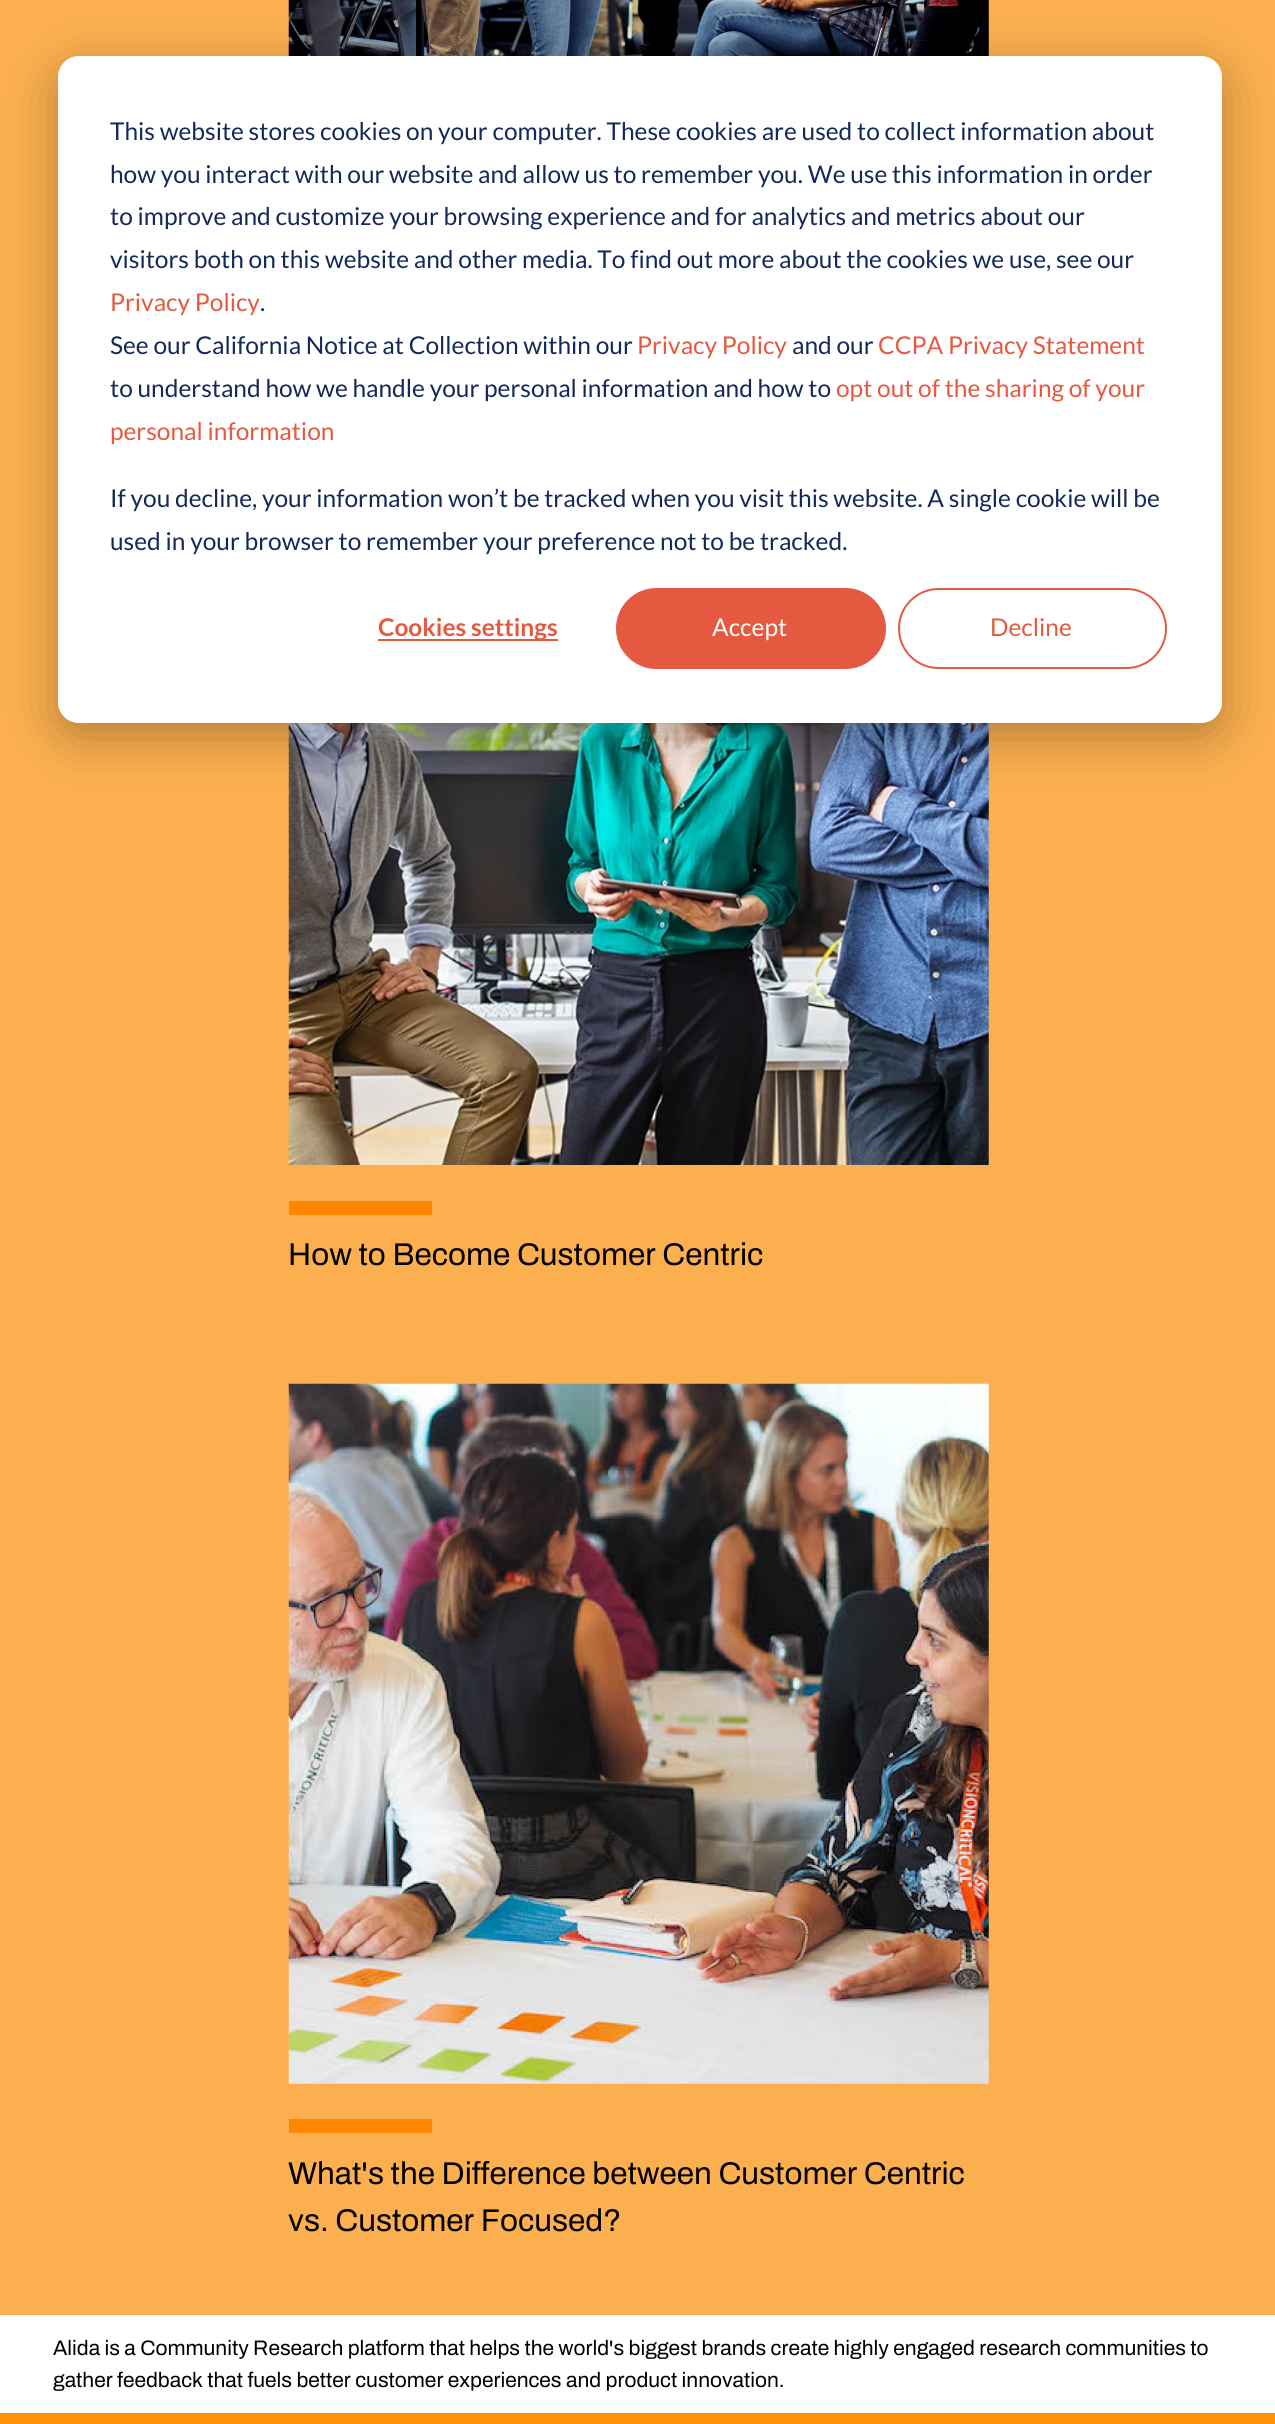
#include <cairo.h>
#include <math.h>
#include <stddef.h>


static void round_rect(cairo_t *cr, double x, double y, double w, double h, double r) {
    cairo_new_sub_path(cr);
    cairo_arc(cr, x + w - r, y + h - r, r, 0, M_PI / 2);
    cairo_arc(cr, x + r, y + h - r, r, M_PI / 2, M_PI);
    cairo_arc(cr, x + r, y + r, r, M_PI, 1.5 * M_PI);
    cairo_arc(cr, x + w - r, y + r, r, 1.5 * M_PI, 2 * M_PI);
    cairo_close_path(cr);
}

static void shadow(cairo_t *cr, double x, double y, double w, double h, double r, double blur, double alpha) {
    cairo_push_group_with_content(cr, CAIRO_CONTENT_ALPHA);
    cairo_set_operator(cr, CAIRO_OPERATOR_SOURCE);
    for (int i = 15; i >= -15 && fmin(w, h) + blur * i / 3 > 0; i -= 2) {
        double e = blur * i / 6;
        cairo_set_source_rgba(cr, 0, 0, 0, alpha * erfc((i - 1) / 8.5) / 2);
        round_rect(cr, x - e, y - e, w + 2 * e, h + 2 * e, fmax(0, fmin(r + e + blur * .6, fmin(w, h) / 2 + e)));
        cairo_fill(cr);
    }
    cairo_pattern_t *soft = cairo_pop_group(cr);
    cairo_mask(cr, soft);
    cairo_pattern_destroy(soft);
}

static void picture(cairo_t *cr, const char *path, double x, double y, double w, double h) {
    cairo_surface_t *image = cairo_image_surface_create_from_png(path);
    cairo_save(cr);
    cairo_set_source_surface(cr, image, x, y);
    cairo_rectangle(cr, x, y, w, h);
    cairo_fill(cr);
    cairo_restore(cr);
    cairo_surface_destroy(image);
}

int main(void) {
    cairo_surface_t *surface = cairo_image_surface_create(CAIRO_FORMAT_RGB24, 1275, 2424);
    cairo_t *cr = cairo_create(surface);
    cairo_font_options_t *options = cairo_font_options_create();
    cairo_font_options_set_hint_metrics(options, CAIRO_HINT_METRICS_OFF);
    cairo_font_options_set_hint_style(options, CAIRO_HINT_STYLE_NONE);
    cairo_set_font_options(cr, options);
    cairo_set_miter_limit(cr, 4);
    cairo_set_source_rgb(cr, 1, 1, 1);
    cairo_paint(cr);
    cairo_set_source_rgb(cr, 0.984, 0.686, 0.31);
    cairo_rectangle(cr, 0, 0, 1275, 2315);
    cairo_fill(cr);
    picture(cr, "img1.png", 288, 0, 701, 56);
    picture(cr, "img2.png", 288, 723, 701, 442);
    cairo_set_source_rgb(cr, 0, 0, 0);
    shadow(cr, 58, 70, 1164, 667, 21, 24.5, 0.28);
    cairo_set_source_rgb(cr, 1, 1, 1);
    round_rect(cr, 58, 56, 1164, 667, 21);
    cairo_fill(cr);
    cairo_select_font_face(cr, "Lato", CAIRO_FONT_SLANT_NORMAL, CAIRO_FONT_WEIGHT_NORMAL);
    cairo_set_font_size(cr, 24.5);
    cairo_set_source_rgb(cr, 0.082, 0.161, 0.353);
    cairo_move_to(cr, 110, 140);
    cairo_show_text(cr, "This website stores cookies on your computer. These cookies are used to collect information about");
    cairo_move_to(cr, 110, 183);
    cairo_show_text(cr, "how you interact with our website and allow us to remember you. We use this information in order");
    cairo_move_to(cr, 110, 225);
    cairo_show_text(cr, "to improve and customize your browsing experience and for analytics and metrics about our");
    cairo_move_to(cr, 110, 268);
    cairo_show_text(cr, "visitors both on this website and other media. To find out more about the cookies we use, see our");
    cairo_set_source_rgb(cr, 0.898, 0.349, 0.251);
    cairo_move_to(cr, 110, 311);
    cairo_show_text(cr, "Privacy Policy");
    cairo_set_source_rgb(cr, 0.082, 0.161, 0.353);
    cairo_move_to(cr, 260, 311);
    cairo_show_text(cr, ".");
    cairo_move_to(cr, 110, 354);
    cairo_show_text(cr, "See our California Notice at Collection within our");
    cairo_set_source_rgb(cr, 0.898, 0.349, 0.251);
    cairo_move_to(cr, 637, 354);
    cairo_show_text(cr, "Privacy Policy");
    cairo_set_source_rgb(cr, 0.082, 0.161, 0.353);
    cairo_move_to(cr, 792, 354);
    cairo_show_text(cr, "and our");
    cairo_set_source_rgb(cr, 0.898, 0.349, 0.251);
    cairo_move_to(cr, 878, 354);
    cairo_show_text(cr, "CCPA Privacy Statement");
    cairo_set_source_rgb(cr, 0.082, 0.161, 0.353);
    cairo_move_to(cr, 110, 397);
    cairo_show_text(cr, "to understand how we handle your personal information and how to");
    cairo_set_source_rgb(cr, 0.898, 0.349, 0.251);
    cairo_move_to(cr, 836, 397);
    cairo_show_text(cr, "opt out of the sharing of your");
    cairo_move_to(cr, 110, 440);
    cairo_show_text(cr, "personal information");
    cairo_set_source_rgb(cr, 0.082, 0.161, 0.353);
    cairo_move_to(cr, 110, 507);
    cairo_show_text(cr, "If you decline, your information won’t be tracked when you visit this website. A single cookie will be");
    cairo_move_to(cr, 110, 550);
    cairo_show_text(cr, "used in your browser to remember your preference not to be tracked.");
    cairo_set_source_rgb(cr, 0.898, 0.349, 0.251);
    cairo_rectangle(cr, 378, 639, 180, 2);
    cairo_fill(cr);
    cairo_select_font_face(cr, "Lato", CAIRO_FONT_SLANT_NORMAL, CAIRO_FONT_WEIGHT_BOLD);
    cairo_move_to(cr, 378, 636);
    cairo_show_text(cr, "Cookies settings");
    round_rect(cr, 617, 589, 268, 79, 39.5);
    cairo_fill_preserve(cr);
    cairo_stroke(cr);
    cairo_select_font_face(cr, "Lato", CAIRO_FONT_SLANT_NORMAL, CAIRO_FONT_WEIGHT_NORMAL);
    cairo_set_source_rgb(cr, 1, 1, 1);
    cairo_move_to(cr, 712, 636);
    cairo_show_text(cr, "Accept");
    round_rect(cr, 899, 589, 267, 79, 39.5);
    cairo_set_source_rgb(cr, 0.898, 0.349, 0.251);
    cairo_stroke(cr);
    cairo_move_to(cr, 990, 636);
    cairo_show_text(cr, "Decline");
    cairo_set_source_rgb(cr, 1, 0.525, 0);
    cairo_rectangle(cr, 289, 1201, 143, 14);
    cairo_fill(cr);
    cairo_select_font_face(cr, "Archivo SemiBold", CAIRO_FONT_SLANT_NORMAL, CAIRO_FONT_WEIGHT_NORMAL);
    cairo_set_font_size(cr, 31.5);
    cairo_set_source_rgb(cr, 0, 0, 0);
    cairo_move_to(cr, 288, 1265);
    cairo_show_text(cr, "How to Become Customer Centric");
    picture(cr, "img3.png", 288, 1383, 701, 701);
    cairo_set_source_rgb(cr, 1, 0.525, 0);
    cairo_rectangle(cr, 289, 2119, 143, 14);
    cairo_fill(cr);
    cairo_set_source_rgb(cr, 0, 0, 0);
    cairo_move_to(cr, 288, 2184);
    cairo_show_text(cr, "What's the Difference between Customer Centric");
    cairo_move_to(cr, 288, 2231);
    cairo_show_text(cr, "vs. Customer Focused?");
    cairo_set_source_rgb(cr, 1, 0.569, 0.039);
    cairo_rectangle(cr, 0, 2413, 1275, 11);
    cairo_fill(cr);
    cairo_set_font_size(cr, 21);
    cairo_set_source_rgb(cr, 0, 0, 0);
    cairo_move_to(cr, 53, 2355);
    cairo_show_text(cr, "Alida is a Community Research platform that helps the world's biggest brands create highly engaged research communities to");
    cairo_move_to(cr, 53, 2387);
    cairo_show_text(cr, "gather feedback that fuels better customer experiences and product innovation.");
    cairo_surface_write_to_png(surface, "page.png");
    cairo_font_options_destroy(options);
    cairo_destroy(cr);
    cairo_surface_destroy(surface);
    return 0;
}
